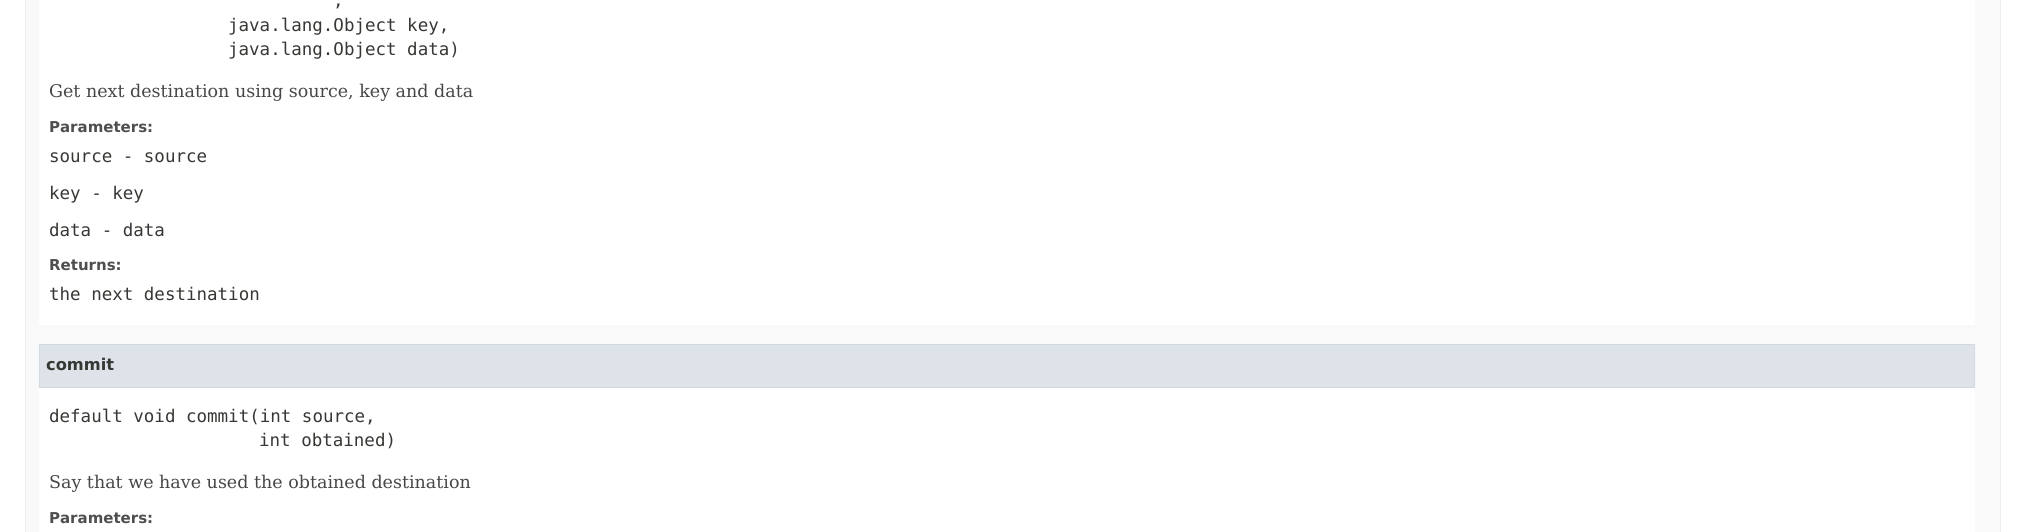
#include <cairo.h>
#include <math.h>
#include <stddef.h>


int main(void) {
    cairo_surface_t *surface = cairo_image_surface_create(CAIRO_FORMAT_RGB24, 2026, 532);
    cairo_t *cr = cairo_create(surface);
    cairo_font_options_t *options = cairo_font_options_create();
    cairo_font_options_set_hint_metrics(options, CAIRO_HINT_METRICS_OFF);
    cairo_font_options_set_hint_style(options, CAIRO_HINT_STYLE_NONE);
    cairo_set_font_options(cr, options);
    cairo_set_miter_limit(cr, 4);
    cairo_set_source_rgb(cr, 1, 1, 1);
    cairo_paint(cr);
    cairo_set_source_rgb(cr, 0.973, 0.973, 0.973);
    cairo_rectangle(cr, 25.5, -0.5, 1975, 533);
    cairo_fill_preserve(cr);
    cairo_set_source_rgb(cr, 0.929, 0.929, 0.929);
    cairo_set_line_width(cr, 1);
    cairo_stroke(cr);
    cairo_set_source_rgb(cr, 1, 1, 1);
    cairo_rectangle(cr, 39, 0, 1936, 325);
    cairo_fill(cr);
    cairo_select_font_face(cr, "DejaVu Sans Mono", CAIRO_FONT_SLANT_NORMAL, CAIRO_FONT_WEIGHT_NORMAL);
    cairo_set_font_size(cr, 17.5);
    cairo_set_source_rgb(cr, 0.208, 0.22, 0.2);
    cairo_move_to(cr, 333, 6);
    cairo_show_text(cr, ",");
    cairo_move_to(cr, 228, 31);
    cairo_show_text(cr, "java.lang.Object key,");
    cairo_move_to(cr, 228, 55);
    cairo_show_text(cr, "java.lang.Object data)");
    cairo_select_font_face(cr, "DejaVu Serif", CAIRO_FONT_SLANT_NORMAL, CAIRO_FONT_WEIGHT_NORMAL);
    cairo_set_source_rgb(cr, 0.278, 0.278, 0.278);
    cairo_move_to(cr, 49, 97);
    cairo_show_text(cr, "Get next destination using source, key and data");
    cairo_select_font_face(cr, "DejaVu Sans", CAIRO_FONT_SLANT_NORMAL, CAIRO_FONT_WEIGHT_BOLD);
    cairo_set_font_size(cr, 15);
    cairo_set_source_rgb(cr, 0.306, 0.306, 0.306);
    cairo_move_to(cr, 49, 132);
    cairo_show_text(cr, "Parameters:");
    cairo_select_font_face(cr, "DejaVu Sans Mono", CAIRO_FONT_SLANT_NORMAL, CAIRO_FONT_WEIGHT_NORMAL);
    cairo_set_font_size(cr, 17.5);
    cairo_set_source_rgb(cr, 0.208, 0.22, 0.2);
    cairo_move_to(cr, 49, 162);
    cairo_show_text(cr, "source - source");
    cairo_move_to(cr, 49, 199);
    cairo_show_text(cr, "key - key");
    cairo_move_to(cr, 49, 236);
    cairo_show_text(cr, "data - data");
    cairo_select_font_face(cr, "DejaVu Sans", CAIRO_FONT_SLANT_NORMAL, CAIRO_FONT_WEIGHT_BOLD);
    cairo_set_font_size(cr, 15);
    cairo_set_source_rgb(cr, 0.306, 0.306, 0.306);
    cairo_move_to(cr, 49, 270);
    cairo_show_text(cr, "Returns:");
    cairo_select_font_face(cr, "DejaVu Sans Mono", CAIRO_FONT_SLANT_NORMAL, CAIRO_FONT_WEIGHT_NORMAL);
    cairo_set_font_size(cr, 17.5);
    cairo_set_source_rgb(cr, 0.208, 0.22, 0.2);
    cairo_move_to(cr, 49, 300);
    cairo_show_text(cr, "the next destination");
    cairo_set_source_rgb(cr, 1, 1, 1);
    cairo_rectangle(cr, 39, 388, 1936, 144);
    cairo_fill(cr);
    cairo_set_source_rgb(cr, 0.871, 0.89, 0.914);
    cairo_rectangle(cr, 39.5, 344.5, 1935, 43);
    cairo_fill_preserve(cr);
    cairo_set_source_rgb(cr, 0.816, 0.851, 0.878);
    cairo_stroke(cr);
    cairo_select_font_face(cr, "DejaVu Sans", CAIRO_FONT_SLANT_NORMAL, CAIRO_FONT_WEIGHT_BOLD);
    cairo_set_font_size(cr, 16.25);
    cairo_set_source_rgb(cr, 0.208, 0.22, 0.2);
    cairo_move_to(cr, 46, 370);
    cairo_show_text(cr, "commit");
    cairo_select_font_face(cr, "DejaVu Sans Mono", CAIRO_FONT_SLANT_NORMAL, CAIRO_FONT_WEIGHT_NORMAL);
    cairo_set_font_size(cr, 17.5);
    cairo_move_to(cr, 49, 422);
    cairo_show_text(cr, "default void commit(int source,");
    cairo_move_to(cr, 259, 446);
    cairo_show_text(cr, "int obtained)");
    cairo_select_font_face(cr, "DejaVu Serif", CAIRO_FONT_SLANT_NORMAL, CAIRO_FONT_WEIGHT_NORMAL);
    cairo_set_source_rgb(cr, 0.278, 0.278, 0.278);
    cairo_move_to(cr, 49, 488);
    cairo_show_text(cr, "Say that we have used the obtained destination");
    cairo_select_font_face(cr, "DejaVu Sans", CAIRO_FONT_SLANT_NORMAL, CAIRO_FONT_WEIGHT_BOLD);
    cairo_set_font_size(cr, 15);
    cairo_set_source_rgb(cr, 0.306, 0.306, 0.306);
    cairo_move_to(cr, 49, 523);
    cairo_show_text(cr, "Parameters:");
    cairo_surface_write_to_png(surface, "page.png");
    cairo_font_options_destroy(options);
    cairo_destroy(cr);
    cairo_surface_destroy(surface);
    return 0;
}
